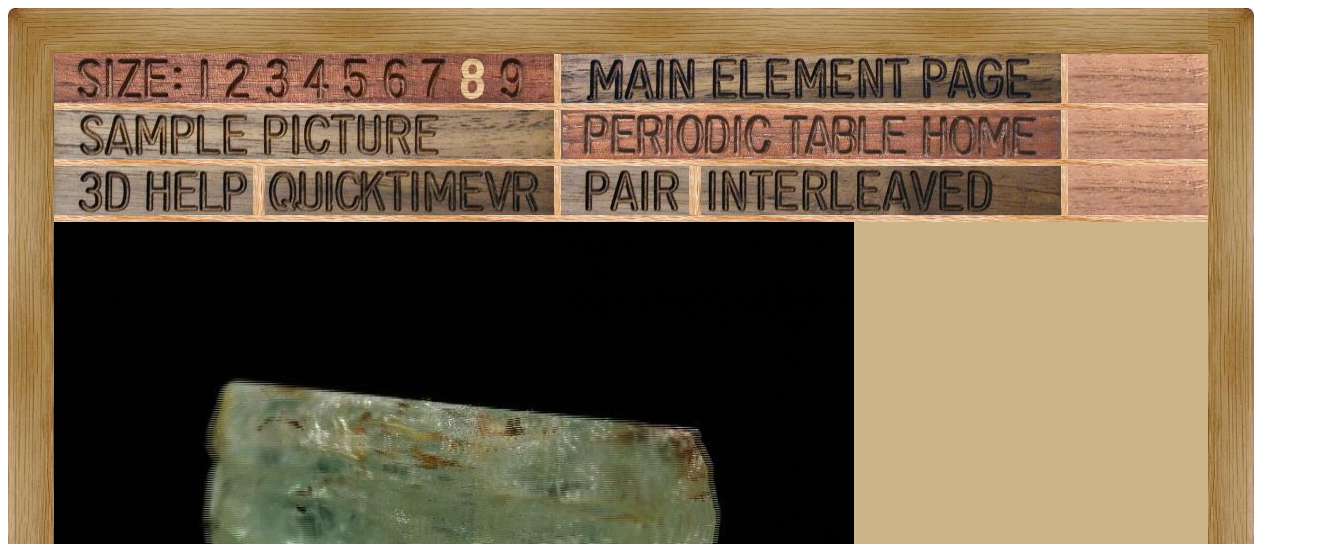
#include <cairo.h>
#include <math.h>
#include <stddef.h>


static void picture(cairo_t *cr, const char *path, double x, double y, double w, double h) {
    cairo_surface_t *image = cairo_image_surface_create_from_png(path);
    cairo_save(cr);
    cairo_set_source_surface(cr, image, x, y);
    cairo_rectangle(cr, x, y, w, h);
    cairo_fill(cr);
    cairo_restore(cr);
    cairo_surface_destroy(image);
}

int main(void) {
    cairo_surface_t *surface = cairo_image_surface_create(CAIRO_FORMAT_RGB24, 1322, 544);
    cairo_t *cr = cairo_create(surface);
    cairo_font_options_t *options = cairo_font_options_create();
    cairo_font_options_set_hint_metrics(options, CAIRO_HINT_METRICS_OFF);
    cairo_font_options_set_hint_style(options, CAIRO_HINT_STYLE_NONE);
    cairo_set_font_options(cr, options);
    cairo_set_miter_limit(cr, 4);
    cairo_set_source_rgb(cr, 1, 1, 1);
    cairo_paint(cr);
    picture(cr, "img1.png", 8, 8, 46, 46);
    picture(cr, "img2.png", 54, 8, 1154, 46);
    picture(cr, "img3.png", 1208, 8, 46, 46);
    picture(cr, "img4.png", 8, 54, 46, 490);
    cairo_set_source_rgb(cr, 0.796, 0.706, 0.533);
    cairo_rectangle(cr, 854, 222, 354, 322);
    cairo_fill(cr);
    picture(cr, "img5.png", 54, 54, 500, 49);
    picture(cr, "img6.png", 554, 54, 7, 49);
    picture(cr, "img7.png", 561, 54, 500, 49);
    picture(cr, "img6.png", 1061, 54, 7, 49);
    picture(cr, "img8.png", 1068, 54, 140, 49);
    picture(cr, "img9.png", 54, 103, 1154, 7);
    picture(cr, "img10.png", 54, 110, 500, 49);
    picture(cr, "img6.png", 554, 110, 7, 49);
    picture(cr, "img11.png", 561, 110, 500, 49);
    picture(cr, "img6.png", 1061, 110, 7, 49);
    picture(cr, "img8.png", 1068, 110, 140, 49);
    picture(cr, "img9.png", 54, 159, 1154, 7);
    picture(cr, "img12.png", 54, 166, 500, 49);
    picture(cr, "img6.png", 554, 166, 7, 49);
    picture(cr, "img13.png", 561, 166, 500, 49);
    picture(cr, "img6.png", 1061, 166, 7, 49);
    picture(cr, "img8.png", 1068, 166, 140, 49);
    picture(cr, "img9.png", 54, 215, 1154, 7);
    picture(cr, "img14.png", 54, 222, 800, 322);
    picture(cr, "img15.png", 1208, 54, 46, 490);
    cairo_surface_write_to_png(surface, "page.png");
    cairo_font_options_destroy(options);
    cairo_destroy(cr);
    cairo_surface_destroy(surface);
    return 0;
}
